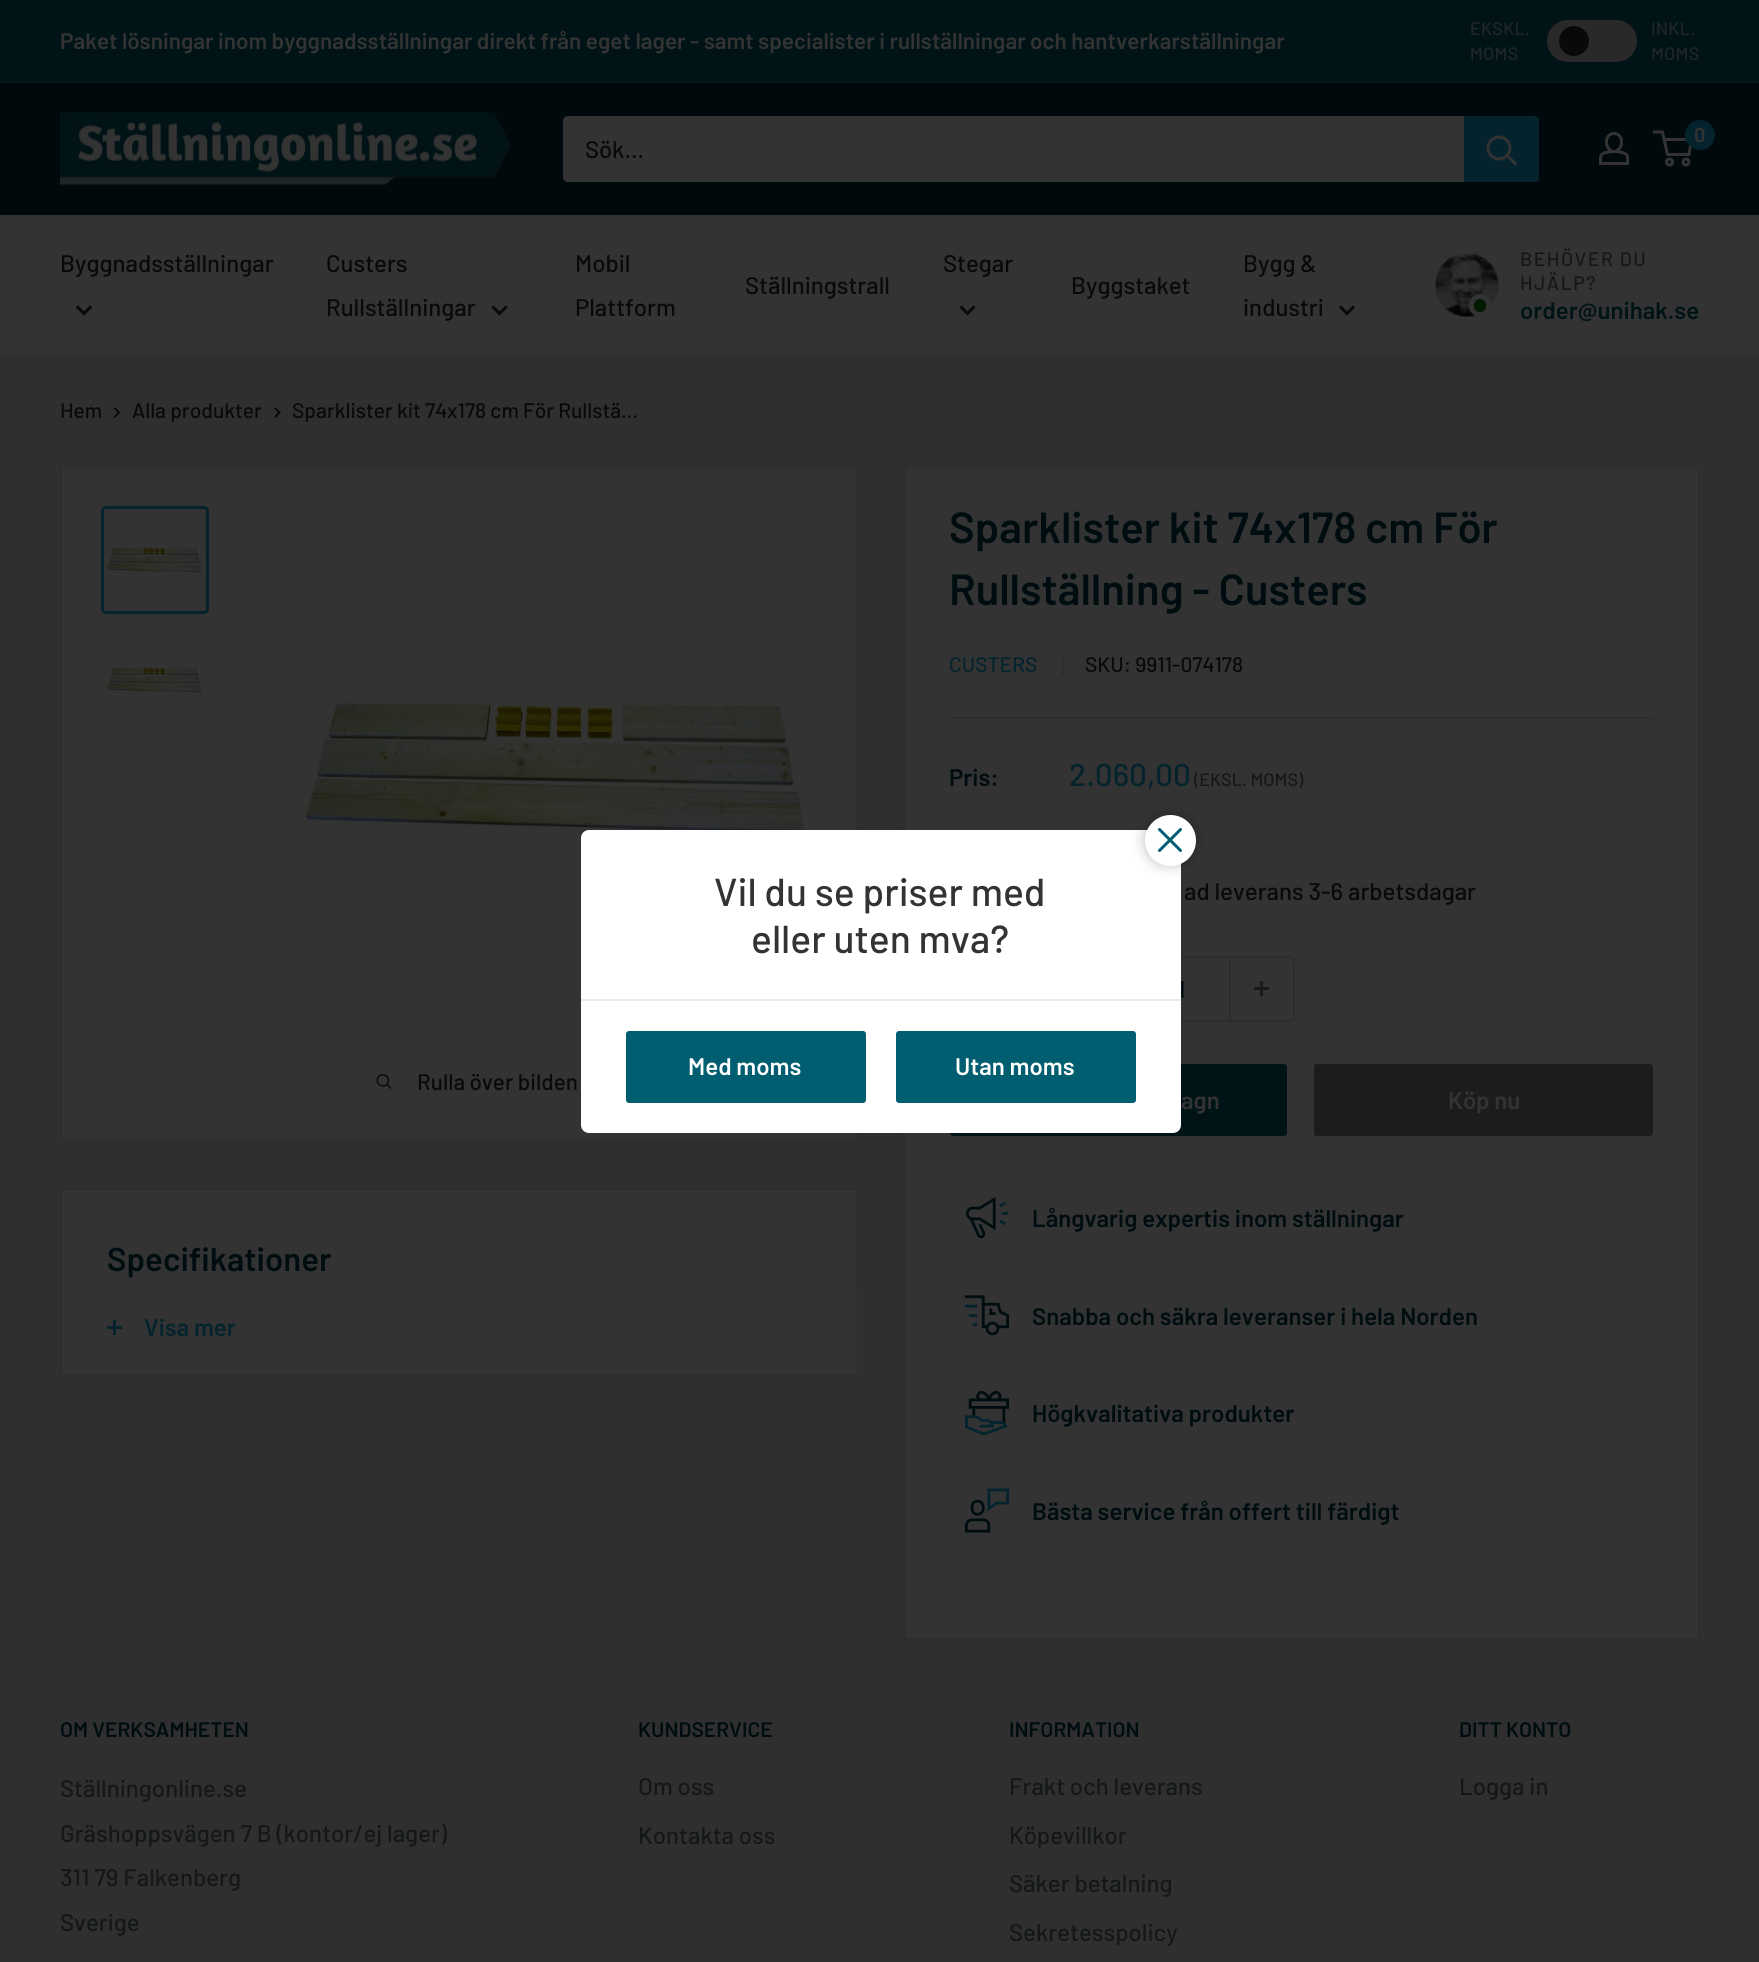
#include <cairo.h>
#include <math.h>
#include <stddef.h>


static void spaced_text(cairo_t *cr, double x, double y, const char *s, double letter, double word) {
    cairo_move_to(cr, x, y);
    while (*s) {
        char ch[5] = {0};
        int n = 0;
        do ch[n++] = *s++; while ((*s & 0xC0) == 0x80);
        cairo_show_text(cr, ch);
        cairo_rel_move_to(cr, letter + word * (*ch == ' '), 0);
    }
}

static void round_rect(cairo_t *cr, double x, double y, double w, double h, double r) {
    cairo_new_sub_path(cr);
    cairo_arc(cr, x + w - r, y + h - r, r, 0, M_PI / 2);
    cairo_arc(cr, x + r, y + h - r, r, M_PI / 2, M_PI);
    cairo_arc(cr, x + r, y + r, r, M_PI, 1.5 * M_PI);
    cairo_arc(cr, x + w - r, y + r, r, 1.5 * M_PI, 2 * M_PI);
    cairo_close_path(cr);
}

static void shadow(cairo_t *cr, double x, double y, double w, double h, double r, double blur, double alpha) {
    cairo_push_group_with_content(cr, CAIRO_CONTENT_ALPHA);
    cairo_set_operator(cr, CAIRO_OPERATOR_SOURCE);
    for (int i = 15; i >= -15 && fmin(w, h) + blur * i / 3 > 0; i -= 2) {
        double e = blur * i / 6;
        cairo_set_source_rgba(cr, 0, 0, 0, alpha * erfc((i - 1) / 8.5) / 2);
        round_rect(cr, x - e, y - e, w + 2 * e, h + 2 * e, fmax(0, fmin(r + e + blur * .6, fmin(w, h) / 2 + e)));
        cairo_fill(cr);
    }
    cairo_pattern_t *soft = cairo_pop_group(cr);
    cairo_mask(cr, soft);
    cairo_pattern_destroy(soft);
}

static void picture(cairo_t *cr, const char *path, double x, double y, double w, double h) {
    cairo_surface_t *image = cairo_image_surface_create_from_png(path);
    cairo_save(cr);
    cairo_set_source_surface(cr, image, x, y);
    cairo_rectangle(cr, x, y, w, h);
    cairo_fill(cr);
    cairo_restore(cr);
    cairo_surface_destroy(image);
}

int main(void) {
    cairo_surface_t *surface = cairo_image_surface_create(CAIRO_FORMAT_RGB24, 1759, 1962);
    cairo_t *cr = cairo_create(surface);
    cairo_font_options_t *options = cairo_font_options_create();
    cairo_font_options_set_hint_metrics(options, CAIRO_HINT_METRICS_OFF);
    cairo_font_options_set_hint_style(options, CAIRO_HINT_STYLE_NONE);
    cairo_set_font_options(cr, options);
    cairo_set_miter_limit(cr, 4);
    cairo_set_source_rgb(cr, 0.184, 0.184, 0.184);
    cairo_paint(cr);
    cairo_set_source_rgb(cr, 0, 0.075, 0.09);
    cairo_rectangle(cr, 0, 0, 1759, 81);
    cairo_fill(cr);
    cairo_set_source_rgb(cr, 0.004, 0.094, 0.114);
    cairo_rectangle(cr, 0, 81, 1759, 2);
    cairo_fill(cr);
    cairo_select_font_face(cr, "Barlow SemiBold", CAIRO_FONT_SLANT_NORMAL, CAIRO_FONT_WEIGHT_NORMAL);
    cairo_set_font_size(cr, 22.5);
    cairo_set_source_rgb(cr, 0.2, 0.2, 0.2);
    cairo_move_to(cr, 60, 49);
    cairo_show_text(cr, "Paket lösningar inom byggnadsställningar direkt från eget lager - samt specialister i rullställningar och hantverkarställningar");
    cairo_select_font_face(cr, "Barlow Medium", CAIRO_FONT_SLANT_NORMAL, CAIRO_FONT_WEIGHT_NORMAL);
    cairo_set_font_size(cr, 18);
    cairo_set_source_rgb(cr, 0.122, 0.149, 0.157);
    spaced_text(cr, 1470, 35, "EKSKL.", 0.25, 0);
    spaced_text(cr, 1470, 60, "MOMS", 0.25, 0);
    cairo_set_source_rgb(cr, 0.161, 0.161, 0.161);
    round_rect(cr, 1547, 20, 90, 42, 21);
    cairo_fill(cr);
    cairo_set_source_rgb(cr, 0.039, 0.039, 0.039);
    cairo_arc(cr, 1574, 41, 15, 0, 2 * M_PI);
    cairo_fill(cr);
    cairo_set_source_rgb(cr, 0.122, 0.149, 0.157);
    spaced_text(cr, 1651, 35, "INKL.", 0.25, 0);
    spaced_text(cr, 1651, 60, "MOMS", 0.25, 0);
    cairo_set_source_rgb(cr, 0, 0.039, 0.047);
    cairo_rectangle(cr, 0, 83, 1759, 132);
    cairo_fill(cr);
    picture(cr, "img1.png", 60, 112, 450, 73);
    picture(cr, "img2.png", 1599, 132, 30, 33);
    cairo_arc(cr, 1669.5, 162, 3, 0, 2 * M_PI);
    cairo_set_source_rgb(cr, 0.2, 0.2, 0.2);
    cairo_set_line_width(cr, 3);
    cairo_stroke(cr);
    cairo_arc(cr, 1686, 162, 3, 0, 2 * M_PI);
    cairo_stroke(cr);
    cairo_new_path(cr);
    cairo_move_to(cr, 1664, 139.5);
    cairo_line_to(cr, 1691.5, 139.5);
    cairo_line_to(cr, 1689, 154.5);
    cairo_line_to(cr, 1667.5, 154.5);
    cairo_line_to(cr, 1662.5, 132);
    cairo_line_to(cr, 1653, 132);
    cairo_stroke(cr);
    cairo_set_source_rgb(cr, 0.02, 0.137, 0.176);
    cairo_arc(cr, 1700, 135, 15, 0, 2 * M_PI);
    cairo_fill(cr);
    cairo_select_font_face(cr, "Barlow SemiBold", CAIRO_FONT_SLANT_NORMAL, CAIRO_FONT_WEIGHT_NORMAL);
    cairo_set_font_size(cr, 20);
    cairo_set_source_rgb(cr, 0.2, 0.2, 0.2);
    cairo_move_to(cr, 1694, 142);
    cairo_show_text(cr, "0");
    round_rect(cr, 563, 116, 976, 66, 5);
    cairo_fill(cr);
    cairo_select_font_face(cr, "Barlow Medium", CAIRO_FONT_SLANT_NORMAL, CAIRO_FONT_WEIGHT_NORMAL);
    cairo_set_font_size(cr, 24);
    cairo_set_source_rgb(cr, 0.039, 0.039, 0.039);
    cairo_move_to(cr, 585, 158);
    cairo_show_text(cr, "Sök...");
    cairo_set_source_rgb(cr, 0.02, 0.137, 0.176);
    cairo_new_path(cr);
    cairo_move_to(cr, 1464, 116);
    cairo_line_to(cr, 1534, 116);
    cairo_curve_to(cr, 1537, 116, 1539, 118, 1539, 121);
    cairo_line_to(cr, 1539, 177);
    cairo_curve_to(cr, 1539, 180, 1537, 182, 1534, 182);
    cairo_line_to(cr, 1464, 182);
    cairo_close_path(cr);
    cairo_fill(cr);
    cairo_new_path(cr);
    cairo_move_to(cr, 1515, 163.5);
    cairo_line_to(cr, 1507.5, 156);
    cairo_set_source_rgb(cr, 0.2, 0.2, 0.2);
    cairo_set_line_cap(cr, CAIRO_LINE_CAP_SQUARE);
    cairo_stroke(cr);
    cairo_arc(cr, 1499, 148, 11, 0, 2 * M_PI);
    cairo_set_line_cap(cr, CAIRO_LINE_CAP_BUTT);
    cairo_stroke(cr);
    cairo_rectangle(cr, 0, 215, 1759, 141);
    cairo_fill(cr);
    cairo_set_source_rgb(cr, 0.039, 0.039, 0.039);
    cairo_move_to(cr, 60, 272);
    cairo_show_text(cr, "Byggnadsställningar");
    cairo_new_path(cr);
    cairo_move_to(cr, 90, 307.5);
    cairo_line_to(cr, 84, 313.5);
    cairo_line_to(cr, 78, 307.5);
    cairo_set_line_cap(cr, CAIRO_LINE_CAP_SQUARE);
    cairo_stroke(cr);
    cairo_move_to(cr, 326, 272);
    cairo_show_text(cr, "Custers");
    cairo_move_to(cr, 326, 316);
    cairo_show_text(cr, "Rullställningar");
    cairo_new_path(cr);
    cairo_move_to(cr, 505.5, 307.5);
    cairo_line_to(cr, 499.5, 313.5);
    cairo_line_to(cr, 493.5, 307.5);
    cairo_stroke(cr);
    cairo_move_to(cr, 575, 272);
    cairo_show_text(cr, "Mobil");
    cairo_move_to(cr, 575, 316);
    cairo_show_text(cr, "Plattform");
    cairo_move_to(cr, 745, 294);
    cairo_show_text(cr, "Ställningstrall");
    cairo_move_to(cr, 943, 272);
    cairo_show_text(cr, "Stegar");
    cairo_new_path(cr);
    cairo_move_to(cr, 973.5, 307.5);
    cairo_line_to(cr, 967.5, 313.5);
    cairo_line_to(cr, 961.5, 307.5);
    cairo_stroke(cr);
    cairo_move_to(cr, 1071, 294);
    cairo_show_text(cr, "Byggstaket");
    cairo_move_to(cr, 1243, 272);
    cairo_show_text(cr, "Bygg &");
    cairo_move_to(cr, 1243, 316);
    cairo_show_text(cr, "industri");
    cairo_new_path(cr);
    cairo_move_to(cr, 1353, 307.5);
    cairo_line_to(cr, 1347, 313.5);
    cairo_line_to(cr, 1341, 307.5);
    cairo_stroke(cr);
    picture(cr, "img3.png", 1435, 253, 64, 64);
    cairo_set_source_rgb(cr, 0, 0.102, 0);
    round_rect(cr, 1471.5, 296.5, 17, 18, 8.5);
    cairo_fill_preserve(cr);
    cairo_set_source_rgb(cr, 0.2, 0.2, 0.2);
    cairo_set_line_width(cr, 5);
    cairo_set_line_cap(cr, CAIRO_LINE_CAP_BUTT);
    cairo_stroke(cr);
    cairo_set_font_size(cr, 19.5);
    cairo_set_source_rgb(cr, 0.082, 0.09, 0.094);
    spaced_text(cr, 1520, 266, "BEHÖVER DU", 1.5, 0);
    spaced_text(cr, 1520, 290, "HJÄLP?", 1.5, 0);
    cairo_select_font_face(cr, "Barlow SemiBold", CAIRO_FONT_SLANT_NORMAL, CAIRO_FONT_WEIGHT_NORMAL);
    cairo_set_font_size(cr, 24);
    cairo_set_source_rgb(cr, 0, 0.075, 0.086);
    cairo_move_to(cr, 1520, 319);
    cairo_show_text(cr, "order@unihak.se");
    cairo_select_font_face(cr, "Barlow Medium", CAIRO_FONT_SLANT_NORMAL, CAIRO_FONT_WEIGHT_NORMAL);
    cairo_set_font_size(cr, 21);
    cairo_set_source_rgb(cr, 0.039, 0.039, 0.039);
    cairo_move_to(cr, 60, 418);
    cairo_show_text(cr, "Hem");
    cairo_new_path(cr);
    cairo_move_to(cr, 115, 408.5);
    cairo_line_to(cr, 119, 412.5);
    cairo_line_to(cr, 115, 416.5);
    cairo_set_line_width(cr, 2);
    cairo_set_line_cap(cr, CAIRO_LINE_CAP_SQUARE);
    cairo_stroke(cr);
    cairo_move_to(cr, 132, 418);
    cairo_show_text(cr, "Alla produkter");
    cairo_new_path(cr);
    cairo_move_to(cr, 275.5, 408.5);
    cairo_line_to(cr, 279.5, 412.5);
    cairo_line_to(cr, 275.5, 416.5);
    cairo_stroke(cr);
    cairo_move_to(cr, 292, 418);
    cairo_show_text(cr, "Sparklister kit 74x178 cm För Rullstä...");
    cairo_set_source_rgb(cr, 0.2, 0.2, 0.2);
    round_rect(cr, 61, 466, 796, 676, 4);
    cairo_fill_preserve(cr);
    cairo_set_source_rgb(cr, 0.176, 0.176, 0.18);
    cairo_set_line_cap(cr, CAIRO_LINE_CAP_BUTT);
    cairo_stroke(cr);
    round_rect(cr, 102.5, 507.5, 105, 105, 3.5);
    cairo_set_source_rgb(cr, 0.02, 0.137, 0.176);
    cairo_set_line_width(cr, 3);
    cairo_stroke(cr);
    picture(cr, "img4.png", 107, 547, 95, 27);
    picture(cr, "img5.png", 107, 667, 95, 27);
    picture(cr, "img6.png", 301, 697, 505, 140);
    picture(cr, "img7.png", 376, 1074, 16, 15);
    cairo_set_font_size(cr, 22.5);
    cairo_set_source_rgb(cr, 0.039, 0.039, 0.039);
    cairo_move_to(cr, 417, 1090);
    cairo_show_text(cr, "Rulla över bilden");
    cairo_set_source_rgb(cr, 0.2, 0.2, 0.2);
    round_rect(cr, 904, 466, 795, 1173, 4);
    cairo_fill_preserve(cr);
    cairo_set_source_rgb(cr, 0.176, 0.176, 0.18);
    cairo_set_line_width(cr, 2);
    cairo_stroke(cr);
    cairo_select_font_face(cr, "Barlow SemiBold", CAIRO_FONT_SLANT_NORMAL, CAIRO_FONT_WEIGHT_NORMAL);
    cairo_set_font_size(cr, 43.5);
    cairo_set_source_rgb(cr, 0, 0.051, 0.063);
    cairo_move_to(cr, 949, 543);
    cairo_show_text(cr, "Sparklister kit 74x178 cm För");
    cairo_move_to(cr, 949, 605);
    cairo_show_text(cr, "Rullställning - Custers");
    cairo_select_font_face(cr, "Barlow Medium", CAIRO_FONT_SLANT_NORMAL, CAIRO_FONT_WEIGHT_NORMAL);
    cairo_set_font_size(cr, 21);
    cairo_set_source_rgb(cr, 0.02, 0.137, 0.176);
    cairo_move_to(cr, 949, 672);
    cairo_show_text(cr, "CUSTERS");
    cairo_set_source_rgb(cr, 0.176, 0.176, 0.18);
    cairo_rectangle(cr, 1062, 656, 2, 19);
    cairo_fill(cr);
    cairo_set_source_rgb(cr, 0.039, 0.039, 0.039);
    cairo_move_to(cr, 1085, 672);
    cairo_show_text(cr, "SKU: 9911-074178");
    cairo_set_source_rgb(cr, 0.176, 0.176, 0.18);
    cairo_rectangle(cr, 950, 717, 703, 2);
    cairo_fill(cr);
    cairo_select_font_face(cr, "Barlow SemiBold", CAIRO_FONT_SLANT_NORMAL, CAIRO_FONT_WEIGHT_NORMAL);
    cairo_set_font_size(cr, 24);
    cairo_set_source_rgb(cr, 0, 0.051, 0.063);
    cairo_move_to(cr, 949, 786);
    cairo_show_text(cr, "Pris:");
    cairo_select_font_face(cr, "Barlow Medium", CAIRO_FONT_SLANT_NORMAL, CAIRO_FONT_WEIGHT_NORMAL);
    cairo_set_font_size(cr, 31.5);
    cairo_set_source_rgb(cr, 0.02, 0.137, 0.176);
    cairo_move_to(cr, 1069, 786);
    cairo_show_text(cr, "2.060,00");
    cairo_set_font_size(cr, 18);
    cairo_set_source_rgb(cr, 0.082, 0.09, 0.094);
    cairo_move_to(cr, 1194, 786);
    cairo_show_text(cr, "(EKSL. MOMS)");
    cairo_set_font_size(cr, 24);
    cairo_set_source_rgb(cr, 0.039, 0.039, 0.039);
    cairo_move_to(cr, 1184, 900);
    cairo_show_text(cr, "ad leverans 3-6 arbetsdagar");
    round_rect(cr, 1071, 957, 223, 64, 4);
    cairo_set_source_rgb(cr, 0.176, 0.176, 0.18);
    cairo_stroke(cr);
    cairo_rectangle(cr, 1229, 957, 2, 63);
    cairo_fill(cr);
    cairo_set_source_rgb(cr, 0, 0.051, 0.063);
    cairo_move_to(cr, 1177, 998);
    cairo_show_text(cr, "1");
    picture(cr, "img8.png", 1254, 981, 15, 15);
    cairo_set_source_rgb(cr, 0, 0.075, 0.086);
    round_rect(cr, 950, 1064, 337, 72, 3);
    cairo_fill(cr);
    cairo_select_font_face(cr, "Barlow SemiBold", CAIRO_FONT_SLANT_NORMAL, CAIRO_FONT_WEIGHT_NORMAL);
    cairo_set_source_rgb(cr, 0.2, 0.2, 0.2);
    cairo_move_to(cr, 1181, 1109);
    cairo_show_text(cr, "agn");
    cairo_set_source_rgb(cr, 0.11, 0.11, 0.11);
    round_rect(cr, 1314, 1064, 339, 72, 3);
    cairo_fill(cr);
    cairo_set_source_rgb(cr, 0.2, 0.2, 0.2);
    cairo_move_to(cr, 1448, 1109);
    cairo_show_text(cr, "Köp nu");
    picture(cr, "img9.png", 965, 1196, 44, 43);
    cairo_set_source_rgb(cr, 0, 0.051, 0.063);
    cairo_move_to(cr, 1032, 1227);
    cairo_show_text(cr, "Långvarig expertis inom ställningar");
    picture(cr, "img10.png", 965, 1295, 45, 41);
    cairo_move_to(cr, 1032, 1325);
    cairo_show_text(cr, "Snabba och säkra leveranser i hela Norden");
    picture(cr, "img11.png", 965, 1391, 45, 44);
    cairo_move_to(cr, 1032, 1422);
    cairo_show_text(cr, "Högkvalitativa produkter");
    picture(cr, "img12.png", 965, 1488, 45, 45);
    cairo_move_to(cr, 1032, 1520);
    cairo_show_text(cr, "Bästa service från offert till färdigt");
    cairo_set_source_rgb(cr, 0.2, 0.2, 0.2);
    round_rect(cr, 61, 1189, 796, 186, 4);
    cairo_fill_preserve(cr);
    cairo_set_source_rgb(cr, 0.176, 0.176, 0.18);
    cairo_stroke(cr);
    cairo_set_font_size(cr, 33);
    cairo_set_source_rgb(cr, 0, 0.051, 0.063);
    cairo_move_to(cr, 107, 1271);
    cairo_show_text(cr, "Specifikationer");
    cairo_set_source_rgb(cr, 0.2, 0.2, 0.2);
    cairo_rectangle(cr, 62, 1284, 795, 90);
    cairo_fill(cr);
    cairo_set_source_rgb(cr, 0.02, 0.137, 0.176);
    cairo_rectangle(cr, 113, 1320, 3, 15);
    cairo_fill(cr);
    cairo_rectangle(cr, 107, 1326, 15, 3);
    cairo_fill(cr);
    cairo_set_font_size(cr, 24);
    cairo_move_to(cr, 144, 1336);
    cairo_show_text(cr, "Visa mer");
    cairo_set_source_rgb(cr, 1, 1, 1);
    round_rect(cr, 581, 830, 600, 303, 8);
    cairo_fill(cr);
    cairo_set_source_rgb(cr, 0, 0, 0);
    shadow(cr, 1143, 813, 54, 54, 27, 6, 0.2);
    cairo_set_source_rgb(cr, 1, 1, 1);
    cairo_arc(cr, 1170.5, 840.5, 25.5, 0, 2 * M_PI);
    cairo_fill(cr);
    picture(cr, "img13.png", 1158, 828, 24, 24);
    cairo_select_font_face(cr, "Barlow Medium", CAIRO_FONT_SLANT_NORMAL, CAIRO_FONT_WEIGHT_NORMAL);
    cairo_set_font_size(cr, 39);
    cairo_set_source_rgb(cr, 0.2, 0.2, 0.2);
    cairo_move_to(cr, 714, 906);
    cairo_show_text(cr, "Vil du se priser med");
    cairo_move_to(cr, 751, 953);
    cairo_show_text(cr, "eller uten mva?");
    cairo_set_source_rgb(cr, 0.918, 0.918, 0.918);
    cairo_rectangle(cr, 581, 999, 600, 2);
    cairo_fill(cr);
    cairo_set_source_rgb(cr, 0, 0.369, 0.439);
    round_rect(cr, 626, 1031, 240, 72, 3);
    cairo_fill(cr);
    cairo_select_font_face(cr, "Barlow SemiBold", CAIRO_FONT_SLANT_NORMAL, CAIRO_FONT_WEIGHT_NORMAL);
    cairo_set_font_size(cr, 24);
    cairo_set_source_rgb(cr, 1, 1, 1);
    cairo_move_to(cr, 688, 1075);
    cairo_show_text(cr, "Med moms");
    cairo_set_source_rgb(cr, 0, 0.369, 0.439);
    round_rect(cr, 896, 1031, 240, 72, 3);
    cairo_fill(cr);
    cairo_set_source_rgb(cr, 1, 1, 1);
    cairo_move_to(cr, 955, 1075);
    cairo_show_text(cr, "Utan moms");
    cairo_set_font_size(cr, 21);
    cairo_set_source_rgb(cr, 0, 0.051, 0.063);
    cairo_move_to(cr, 60, 1737);
    cairo_show_text(cr, "OM VERKSAMHETEN");
    cairo_select_font_face(cr, "Barlow Medium", CAIRO_FONT_SLANT_NORMAL, CAIRO_FONT_WEIGHT_NORMAL);
    cairo_set_font_size(cr, 24);
    cairo_set_source_rgb(cr, 0.082, 0.09, 0.094);
    cairo_move_to(cr, 60, 1797);
    cairo_show_text(cr, "Ställningonline.se");
    cairo_move_to(cr, 60, 1842);
    cairo_show_text(cr, "Gräshoppsvägen 7 B (kontor/ej lager)");
    cairo_move_to(cr, 60, 1886);
    cairo_show_text(cr, "311 79 Falkenberg");
    cairo_move_to(cr, 60, 1931);
    cairo_show_text(cr, "Sverige");
    cairo_select_font_face(cr, "Barlow SemiBold", CAIRO_FONT_SLANT_NORMAL, CAIRO_FONT_WEIGHT_NORMAL);
    cairo_set_font_size(cr, 21);
    cairo_set_source_rgb(cr, 0, 0.051, 0.063);
    cairo_move_to(cr, 638, 1737);
    cairo_show_text(cr, "KUNDSERVICE");
    cairo_select_font_face(cr, "Barlow Medium", CAIRO_FONT_SLANT_NORMAL, CAIRO_FONT_WEIGHT_NORMAL);
    cairo_set_font_size(cr, 24);
    cairo_set_source_rgb(cr, 0.082, 0.09, 0.094);
    cairo_move_to(cr, 638, 1795);
    cairo_show_text(cr, "Om oss");
    cairo_move_to(cr, 638, 1844);
    cairo_show_text(cr, "Kontakta oss");
    cairo_select_font_face(cr, "Barlow SemiBold", CAIRO_FONT_SLANT_NORMAL, CAIRO_FONT_WEIGHT_NORMAL);
    cairo_set_font_size(cr, 21);
    cairo_set_source_rgb(cr, 0, 0.051, 0.063);
    cairo_move_to(cr, 1009, 1737);
    cairo_show_text(cr, "INFORMATION");
    cairo_select_font_face(cr, "Barlow Medium", CAIRO_FONT_SLANT_NORMAL, CAIRO_FONT_WEIGHT_NORMAL);
    cairo_set_font_size(cr, 24);
    cairo_set_source_rgb(cr, 0.082, 0.09, 0.094);
    cairo_move_to(cr, 1009, 1795);
    cairo_show_text(cr, "Frakt och leverans");
    cairo_move_to(cr, 1009, 1844);
    cairo_show_text(cr, "Köpevillkor");
    cairo_move_to(cr, 1009, 1892);
    cairo_show_text(cr, "Säker betalning");
    cairo_move_to(cr, 1009, 1941);
    cairo_show_text(cr, "Sekretesspolicy");
    cairo_select_font_face(cr, "Barlow SemiBold", CAIRO_FONT_SLANT_NORMAL, CAIRO_FONT_WEIGHT_NORMAL);
    cairo_set_font_size(cr, 21);
    cairo_set_source_rgb(cr, 0, 0.051, 0.063);
    cairo_move_to(cr, 1459, 1737);
    cairo_show_text(cr, "DITT KONTO");
    cairo_select_font_face(cr, "Barlow Medium", CAIRO_FONT_SLANT_NORMAL, CAIRO_FONT_WEIGHT_NORMAL);
    cairo_set_font_size(cr, 24);
    cairo_set_source_rgb(cr, 0.082, 0.09, 0.094);
    cairo_move_to(cr, 1459, 1795);
    cairo_show_text(cr, "Logga in");
    cairo_surface_write_to_png(surface, "page.png");
    cairo_font_options_destroy(options);
    cairo_destroy(cr);
    cairo_surface_destroy(surface);
    return 0;
}
